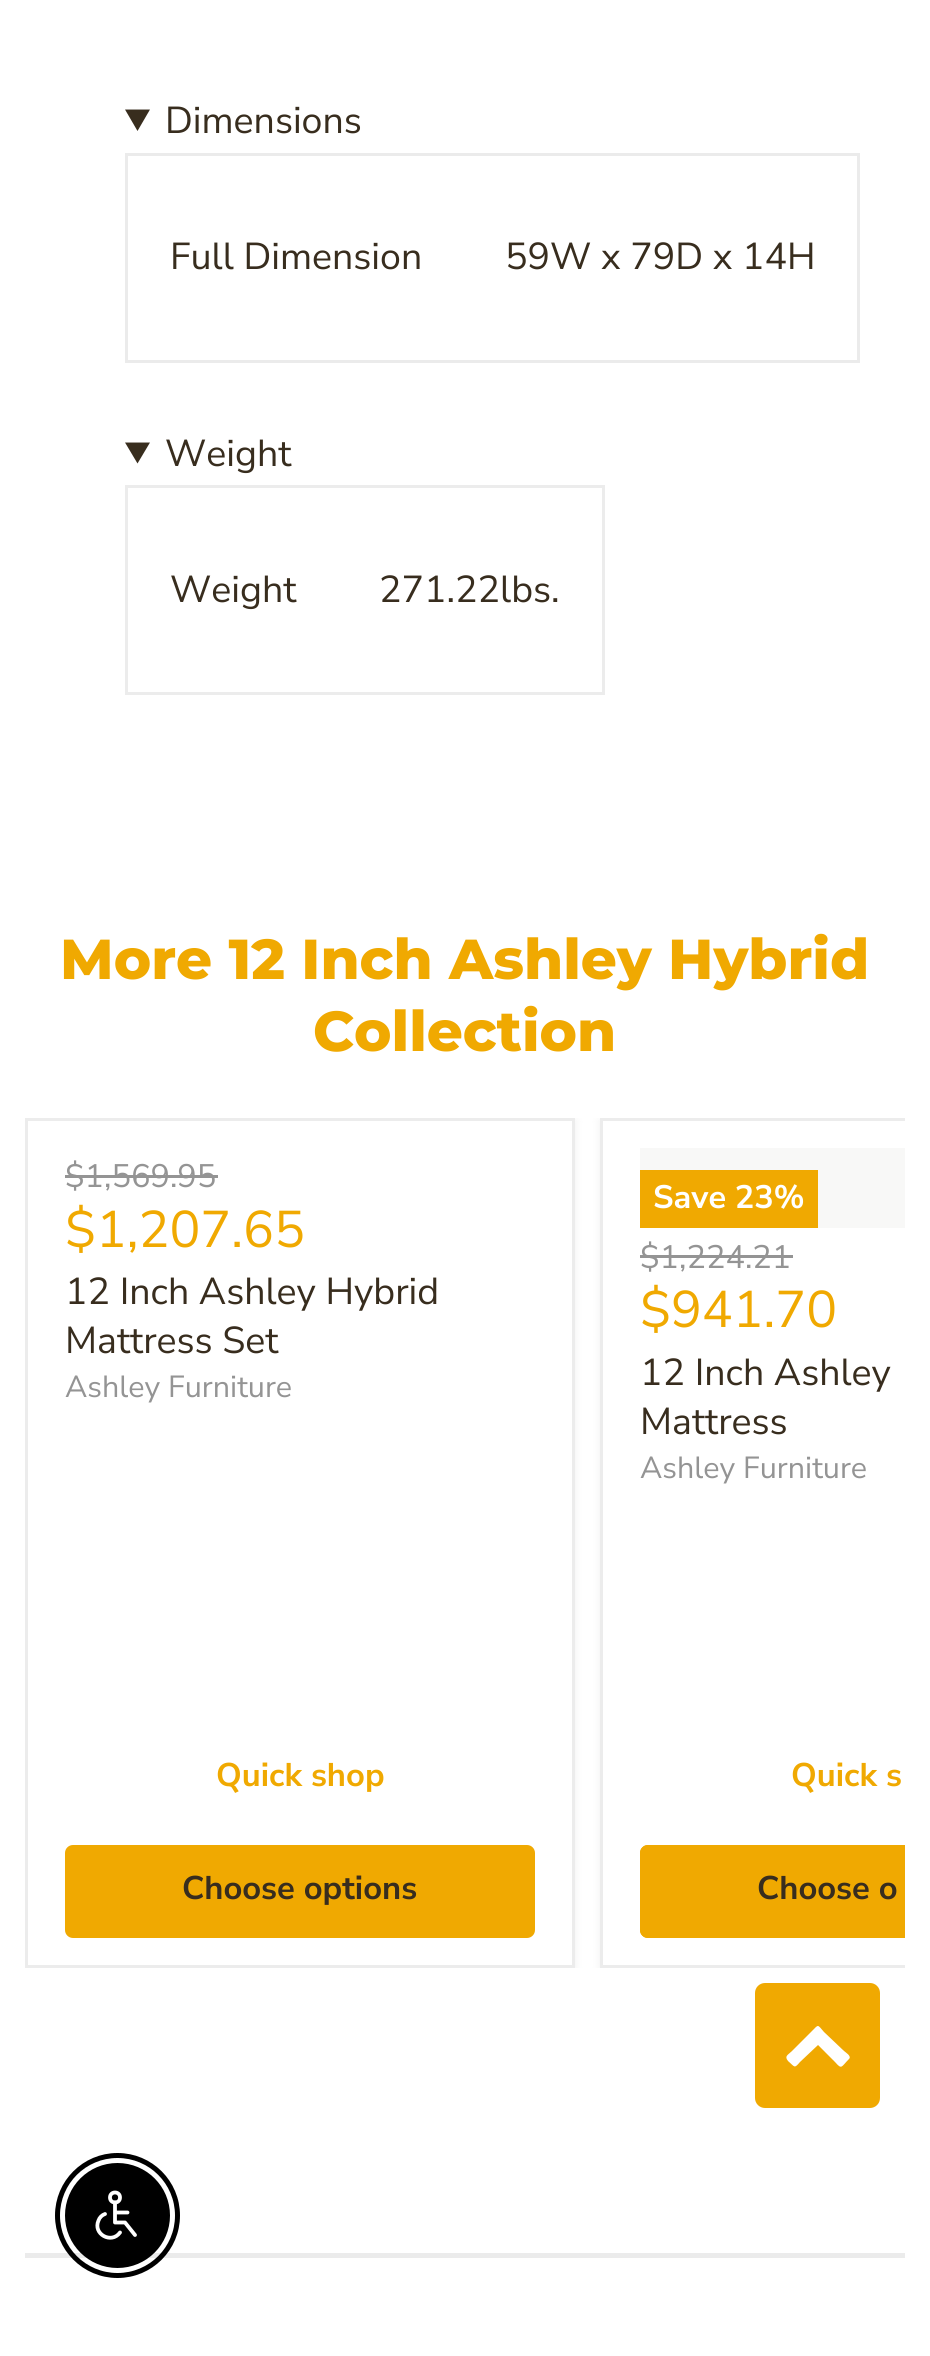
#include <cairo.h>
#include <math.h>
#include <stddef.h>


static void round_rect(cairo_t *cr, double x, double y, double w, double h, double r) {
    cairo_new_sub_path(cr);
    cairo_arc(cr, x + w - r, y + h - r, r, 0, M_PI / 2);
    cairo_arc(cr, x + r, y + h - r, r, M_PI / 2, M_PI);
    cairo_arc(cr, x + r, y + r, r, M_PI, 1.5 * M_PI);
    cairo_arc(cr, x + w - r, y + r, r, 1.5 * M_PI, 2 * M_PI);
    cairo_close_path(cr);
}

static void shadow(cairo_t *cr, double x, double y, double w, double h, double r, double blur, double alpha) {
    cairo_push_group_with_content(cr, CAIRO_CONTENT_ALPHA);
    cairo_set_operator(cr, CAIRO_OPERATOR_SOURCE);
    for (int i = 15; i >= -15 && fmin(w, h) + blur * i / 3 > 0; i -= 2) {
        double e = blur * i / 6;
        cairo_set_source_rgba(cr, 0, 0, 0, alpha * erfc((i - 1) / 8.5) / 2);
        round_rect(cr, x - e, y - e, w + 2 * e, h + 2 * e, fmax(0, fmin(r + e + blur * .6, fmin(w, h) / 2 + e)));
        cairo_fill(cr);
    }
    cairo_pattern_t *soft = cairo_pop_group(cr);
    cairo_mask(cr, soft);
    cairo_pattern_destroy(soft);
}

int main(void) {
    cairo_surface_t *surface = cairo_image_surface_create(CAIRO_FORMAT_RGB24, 930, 2356);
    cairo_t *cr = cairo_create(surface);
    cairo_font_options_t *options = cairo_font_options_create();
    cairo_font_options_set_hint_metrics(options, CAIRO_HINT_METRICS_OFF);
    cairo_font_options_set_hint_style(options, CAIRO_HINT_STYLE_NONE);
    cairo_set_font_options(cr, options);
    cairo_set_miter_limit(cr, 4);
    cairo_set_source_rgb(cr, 1, 1, 1);
    cairo_paint(cr);
    cairo_set_source_rgb(cr, 0.22, 0.176, 0.118);
    cairo_new_path(cr);
    cairo_move_to(cr, 125, 109.5);
    cairo_line_to(cr, 150, 109.5);
    cairo_line_to(cr, 137.5, 131);
    cairo_close_path(cr);
    cairo_fill(cr);
    cairo_select_font_face(cr, "Nunito Sans", CAIRO_FONT_SLANT_NORMAL, CAIRO_FONT_WEIGHT_NORMAL);
    cairo_set_font_size(cr, 37.5);
    cairo_move_to(cr, 165, 133);
    cairo_show_text(cr, "Dimensions");
    cairo_rectangle(cr, 126.5, 154.5, 732, 207);
    cairo_set_source_rgba(cr, 0.502, 0.502, 0.502, 0.16);
    cairo_set_line_width(cr, 3);
    cairo_stroke(cr);
    cairo_set_source_rgb(cr, 0.22, 0.176, 0.118);
    cairo_move_to(cr, 170, 269);
    cairo_show_text(cr, "Full Dimension");
    cairo_move_to(cr, 505, 269);
    cairo_show_text(cr, "59W x 79D x 14H");
    cairo_new_path(cr);
    cairo_move_to(cr, 125, 442.5);
    cairo_line_to(cr, 150, 442.5);
    cairo_line_to(cr, 137.5, 463.5);
    cairo_close_path(cr);
    cairo_fill(cr);
    cairo_move_to(cr, 165, 466);
    cairo_show_text(cr, "Weight");
    cairo_rectangle(cr, 126.5, 486.5, 477, 207);
    cairo_set_source_rgb(cr, 0.922, 0.922, 0.922);
    cairo_stroke(cr);
    cairo_set_source_rgb(cr, 0.22, 0.176, 0.118);
    cairo_move_to(cr, 170, 602);
    cairo_show_text(cr, "Weight");
    cairo_move_to(cr, 379, 602);
    cairo_show_text(cr, "271.22lbs.");
    cairo_select_font_face(cr, "Montserrat ExtraBold", CAIRO_FONT_SLANT_NORMAL, CAIRO_FONT_WEIGHT_NORMAL);
    cairo_set_font_size(cr, 56.25);
    cairo_set_source_rgb(cr, 0.941, 0.663, 0.004);
    cairo_move_to(cr, 60, 979);
    cairo_show_text(cr, "More 12 Inch Ashley Hybrid");
    cairo_move_to(cr, 313, 1051);
    cairo_show_text(cr, "Collection");
    cairo_save(cr);
    cairo_rectangle(cr, 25, 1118, 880, 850);
    cairo_clip(cr);
    cairo_set_source_rgb(cr, 0.502, 0.502, 0.502);
    shadow(cr, 25, 1120, 550, 850, 0, 5, 0.11);
    cairo_restore(cr);
    cairo_set_source_rgb(cr, 1, 1, 1);
    cairo_rectangle(cr, 26.5, 1119.5, 547, 847);
    cairo_fill_preserve(cr);
    cairo_set_source_rgb(cr, 0.922, 0.922, 0.922);
    cairo_stroke(cr);
    cairo_select_font_face(cr, "Nunito Sans", CAIRO_FONT_SLANT_NORMAL, CAIRO_FONT_WEIGHT_NORMAL);
    cairo_set_font_size(cr, 32.5);
    cairo_set_source_rgb(cr, 0.58, 0.58, 0.58);
    cairo_move_to(cr, 65, 1187);
    cairo_show_text(cr, "$1,569.95");
    cairo_rectangle(cr, 65, 1175, 153, 3);
    cairo_fill(cr);
    cairo_set_font_size(cr, 51.5);
    cairo_set_source_rgb(cr, 0.941, 0.663, 0.004);
    cairo_move_to(cr, 65, 1247);
    cairo_show_text(cr, "$1,207.65");
    cairo_set_font_size(cr, 37.5);
    cairo_set_source_rgb(cr, 0.22, 0.176, 0.118);
    cairo_move_to(cr, 65, 1304);
    cairo_show_text(cr, "12 Inch Ashley Hybrid");
    cairo_move_to(cr, 65, 1353);
    cairo_show_text(cr, "Mattress Set");
    cairo_set_font_size(cr, 30.5);
    cairo_set_source_rgb(cr, 0.58, 0.58, 0.58);
    cairo_move_to(cr, 65, 1397);
    cairo_show_text(cr, "Ashley Furniture");
    cairo_select_font_face(cr, "Nunito Sans", CAIRO_FONT_SLANT_NORMAL, CAIRO_FONT_WEIGHT_BOLD);
    cairo_set_font_size(cr, 32.75);
    cairo_set_source_rgb(cr, 0.941, 0.663, 0.004);
    cairo_move_to(cr, 216, 1786);
    cairo_show_text(cr, "Quick shop");
    round_rect(cr, 66.5, 1846.5, 467, 90, 6.5);
    cairo_fill_preserve(cr);
    cairo_stroke(cr);
    cairo_set_source_rgb(cr, 0.22, 0.176, 0.118);
    cairo_move_to(cr, 182, 1899);
    cairo_show_text(cr, "Choose options");
    cairo_save(cr);
    cairo_rectangle(cr, 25, 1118, 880, 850);
    cairo_clip(cr);
    cairo_set_source_rgb(cr, 0.502, 0.502, 0.502);
    shadow(cr, 600, 1120, 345, 850, 0, 5, 0.11);
    cairo_restore(cr);
    cairo_set_source_rgb(cr, 1, 1, 1);
    cairo_rectangle(cr, 603, 1121, 302, 844);
    cairo_fill(cr);
    cairo_save(cr);
    cairo_rectangle(cr, 25, 1118, 880, 850);
    cairo_clip(cr);
    cairo_rectangle(cr, 601.5, 1119.5, 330, 847);
    cairo_set_source_rgb(cr, 0.922, 0.922, 0.922);
    cairo_stroke(cr);
    cairo_restore(cr);
    cairo_set_source_rgb(cr, 0.969, 0.969, 0.965);
    cairo_rectangle(cr, 640, 1148, 265, 80);
    cairo_fill(cr);
    cairo_set_source_rgb(cr, 0.941, 0.663, 0.004);
    cairo_rectangle(cr, 640, 1170, 178, 58);
    cairo_fill(cr);
    cairo_set_font_size(cr, 32.5);
    cairo_set_source_rgb(cr, 1, 1, 1);
    cairo_move_to(cr, 653, 1208);
    cairo_show_text(cr, "Save 23%");
    cairo_select_font_face(cr, "Nunito Sans", CAIRO_FONT_SLANT_NORMAL, CAIRO_FONT_WEIGHT_NORMAL);
    cairo_set_source_rgb(cr, 0.58, 0.58, 0.58);
    cairo_move_to(cr, 640, 1268);
    cairo_show_text(cr, "$1,224.21");
    cairo_rectangle(cr, 640, 1255, 153, 3);
    cairo_fill(cr);
    cairo_set_font_size(cr, 51.5);
    cairo_set_source_rgb(cr, 0.941, 0.663, 0.004);
    cairo_move_to(cr, 640, 1327);
    cairo_show_text(cr, "$941.70");
    cairo_set_font_size(cr, 37.5);
    cairo_set_source_rgb(cr, 0.22, 0.176, 0.118);
    cairo_move_to(cr, 640, 1385);
    cairo_show_text(cr, "12 Inch Ashley");
    cairo_move_to(cr, 640, 1434);
    cairo_show_text(cr, "Mattress");
    cairo_set_font_size(cr, 30.5);
    cairo_set_source_rgb(cr, 0.58, 0.58, 0.58);
    cairo_move_to(cr, 640, 1478);
    cairo_show_text(cr, "Ashley Furniture");
    cairo_select_font_face(cr, "Nunito Sans", CAIRO_FONT_SLANT_NORMAL, CAIRO_FONT_WEIGHT_BOLD);
    cairo_set_font_size(cr, 32.75);
    cairo_set_source_rgb(cr, 0.941, 0.663, 0.004);
    cairo_move_to(cr, 791, 1786);
    cairo_show_text(cr, "Quick s");
    cairo_new_path(cr);
    cairo_move_to(cr, 648, 1845);
    cairo_line_to(cr, 905, 1845);
    cairo_line_to(cr, 905, 1938);
    cairo_line_to(cr, 648, 1938);
    cairo_curve_to(cr, 643.5, 1938, 640, 1934.5, 640, 1930);
    cairo_line_to(cr, 640, 1853);
    cairo_curve_to(cr, 640, 1848.5, 643.5, 1845, 648, 1845);
    cairo_close_path(cr);
    cairo_fill(cr);
    cairo_save(cr);
    cairo_rectangle(cr, 25, 1118, 880, 850);
    cairo_clip(cr);
    round_rect(cr, 641.5, 1846.5, 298, 90, 6.5);
    cairo_stroke(cr);
    cairo_restore(cr);
    cairo_set_source_rgb(cr, 0.22, 0.176, 0.118);
    cairo_move_to(cr, 757, 1899);
    cairo_show_text(cr, "Choose o");
    cairo_set_source_rgba(cr, 0.502, 0.502, 0.502, 0.16);
    cairo_rectangle(cr, 25, 2253, 880, 5);
    cairo_fill(cr);
    cairo_set_source_rgb(cr, 0.941, 0.663, 0.004);
    round_rect(cr, 755, 1983, 125, 125, 10);
    cairo_fill(cr);
    cairo_set_source_rgb(cr, 1, 1, 1);
    cairo_new_path(cr);
    cairo_move_to(cr, 849, 2059);
    cairo_curve_to(cr, 841, 2067, 842, 2070, 835, 2062);
    cairo_line_to(cr, 818, 2045);
    cairo_line_to(cr, 800, 2062);
    cairo_curve_to(cr, 794, 2069, 795, 2067, 788, 2061);
    cairo_curve_to(cr, 784, 2056, 788, 2055, 792, 2051);
    cairo_line_to(cr, 811, 2032);
    cairo_curve_to(cr, 819, 2024, 817, 2024, 824, 2032);
    cairo_line_to(cr, 844, 2051);
    cairo_curve_to(cr, 845, 2052, 852, 2056, 849, 2059);
    cairo_close_path(cr);
    cairo_fill(cr);
    cairo_arc(cr, 117.5, 2215.5, 60, 0, 2 * M_PI);
    cairo_set_source_rgb(cr, 0, 0, 0);
    cairo_set_line_width(cr, 5);
    cairo_stroke(cr);
    cairo_arc(cr, 117.5, 2215.5, 51, 0, 2 * M_PI);
    cairo_fill_preserve(cr);
    cairo_set_line_width(cr, 3);
    cairo_stroke(cr);
    cairo_arc(cr, 115, 2197.5, 5, 0, 2 * M_PI);
    cairo_set_source_rgb(cr, 1, 1, 1);
    cairo_set_line_width(cr, 3.8);
    cairo_stroke(cr);
    cairo_new_path(cr);
    cairo_move_to(cr, 115, 2202.5);
    cairo_line_to(cr, 115, 2222.5);
    cairo_line_to(cr, 125, 2222.5);
    cairo_line_to(cr, 135, 2235);
    cairo_move_to(cr, 115, 2212.5);
    cairo_line_to(cr, 127.5, 2212.5);
    cairo_move_to(cr, 105, 2214);
    cairo_curve_to(cr, 102, 2215, 99.5, 2217.5, 98.5, 2220.5);
    cairo_curve_to(cr, 92.5, 2234, 111.5, 2244.5, 120, 2232.5);
    cairo_set_line_cap(cr, CAIRO_LINE_CAP_ROUND);
    cairo_set_line_join(cr, CAIRO_LINE_JOIN_ROUND);
    cairo_stroke(cr);
    cairo_surface_write_to_png(surface, "page.png");
    cairo_font_options_destroy(options);
    cairo_destroy(cr);
    cairo_surface_destroy(surface);
    return 0;
}
